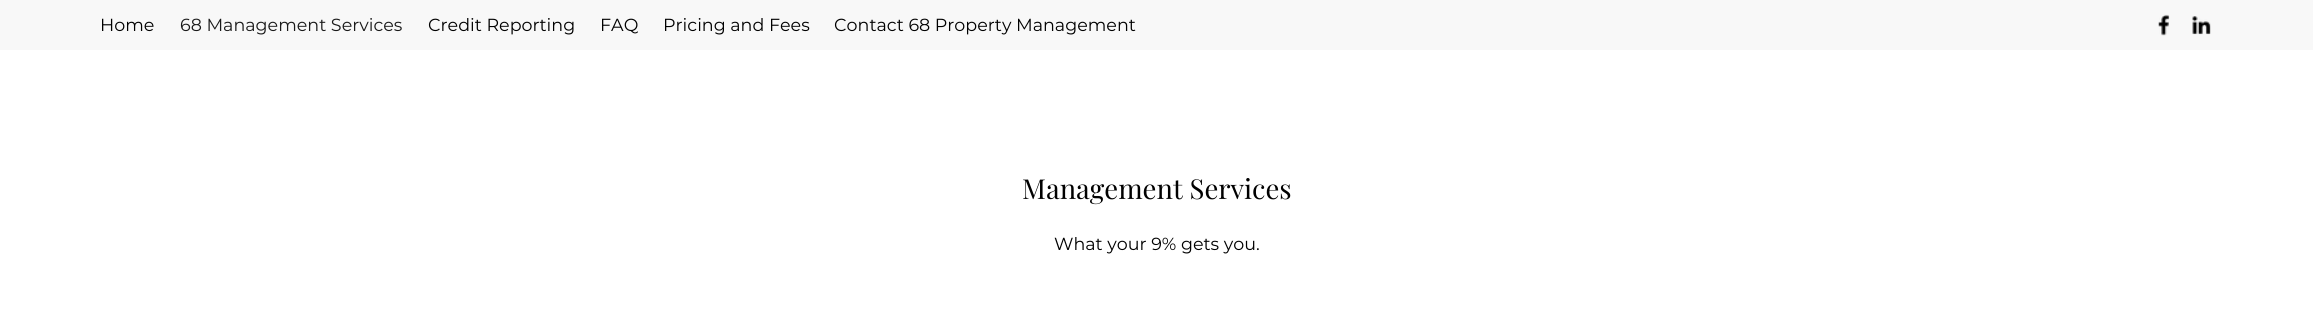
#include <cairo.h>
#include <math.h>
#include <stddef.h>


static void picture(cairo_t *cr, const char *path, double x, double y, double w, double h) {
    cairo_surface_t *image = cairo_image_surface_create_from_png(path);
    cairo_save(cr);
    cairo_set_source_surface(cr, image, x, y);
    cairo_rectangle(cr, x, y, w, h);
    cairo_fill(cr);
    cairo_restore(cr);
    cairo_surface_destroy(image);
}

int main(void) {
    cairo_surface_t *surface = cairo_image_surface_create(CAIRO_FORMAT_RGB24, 2313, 335);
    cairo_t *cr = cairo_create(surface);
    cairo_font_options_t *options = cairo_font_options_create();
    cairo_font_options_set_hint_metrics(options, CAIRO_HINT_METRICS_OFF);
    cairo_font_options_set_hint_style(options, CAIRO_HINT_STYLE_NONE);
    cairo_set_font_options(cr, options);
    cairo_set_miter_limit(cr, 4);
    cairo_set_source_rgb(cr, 1, 1, 1);
    cairo_paint(cr);
    cairo_set_source_rgb(cr, 0.969, 0.969, 0.969);
    cairo_rectangle(cr, 0, 0, 2313, 50);
    cairo_fill(cr);
    cairo_select_font_face(cr, "Montserrat", CAIRO_FONT_SLANT_NORMAL, CAIRO_FONT_WEIGHT_NORMAL);
    cairo_set_font_size(cr, 17.5);
    cairo_set_source_rgb(cr, 0, 0, 0);
    cairo_move_to(cr, 100, 31);
    cairo_show_text(cr, "Home");
    cairo_set_source_rgb(cr, 0.098, 0.098, 0.098);
    cairo_move_to(cr, 180, 31);
    cairo_show_text(cr, "68 Management Services");
    cairo_set_source_rgb(cr, 0, 0, 0);
    cairo_move_to(cr, 428, 31);
    cairo_show_text(cr, "Credit Reporting");
    cairo_move_to(cr, 600, 31);
    cairo_show_text(cr, "FAQ");
    cairo_move_to(cr, 663, 31);
    cairo_show_text(cr, "Pricing and Fees");
    cairo_move_to(cr, 834, 31);
    cairo_show_text(cr, "Contact 68 Property Management");
    picture(cr, "img1.png", 2158, 14, 12, 22);
    picture(cr, "img2.png", 2192, 16, 19, 19);
    cairo_select_font_face(cr, "Playfair Display", CAIRO_FONT_SLANT_NORMAL, CAIRO_FONT_WEIGHT_NORMAL);
    cairo_set_font_size(cr, 27.5);
    cairo_move_to(cr, 1022, 199);
    cairo_show_text(cr, "Management Services");
    cairo_select_font_face(cr, "Montserrat", CAIRO_FONT_SLANT_NORMAL, CAIRO_FONT_WEIGHT_NORMAL);
    cairo_set_font_size(cr, 17.5);
    cairo_move_to(cr, 1054, 250);
    cairo_show_text(cr, "What your 9% gets you.");
    cairo_surface_write_to_png(surface, "page.png");
    cairo_font_options_destroy(options);
    cairo_destroy(cr);
    cairo_surface_destroy(surface);
    return 0;
}
